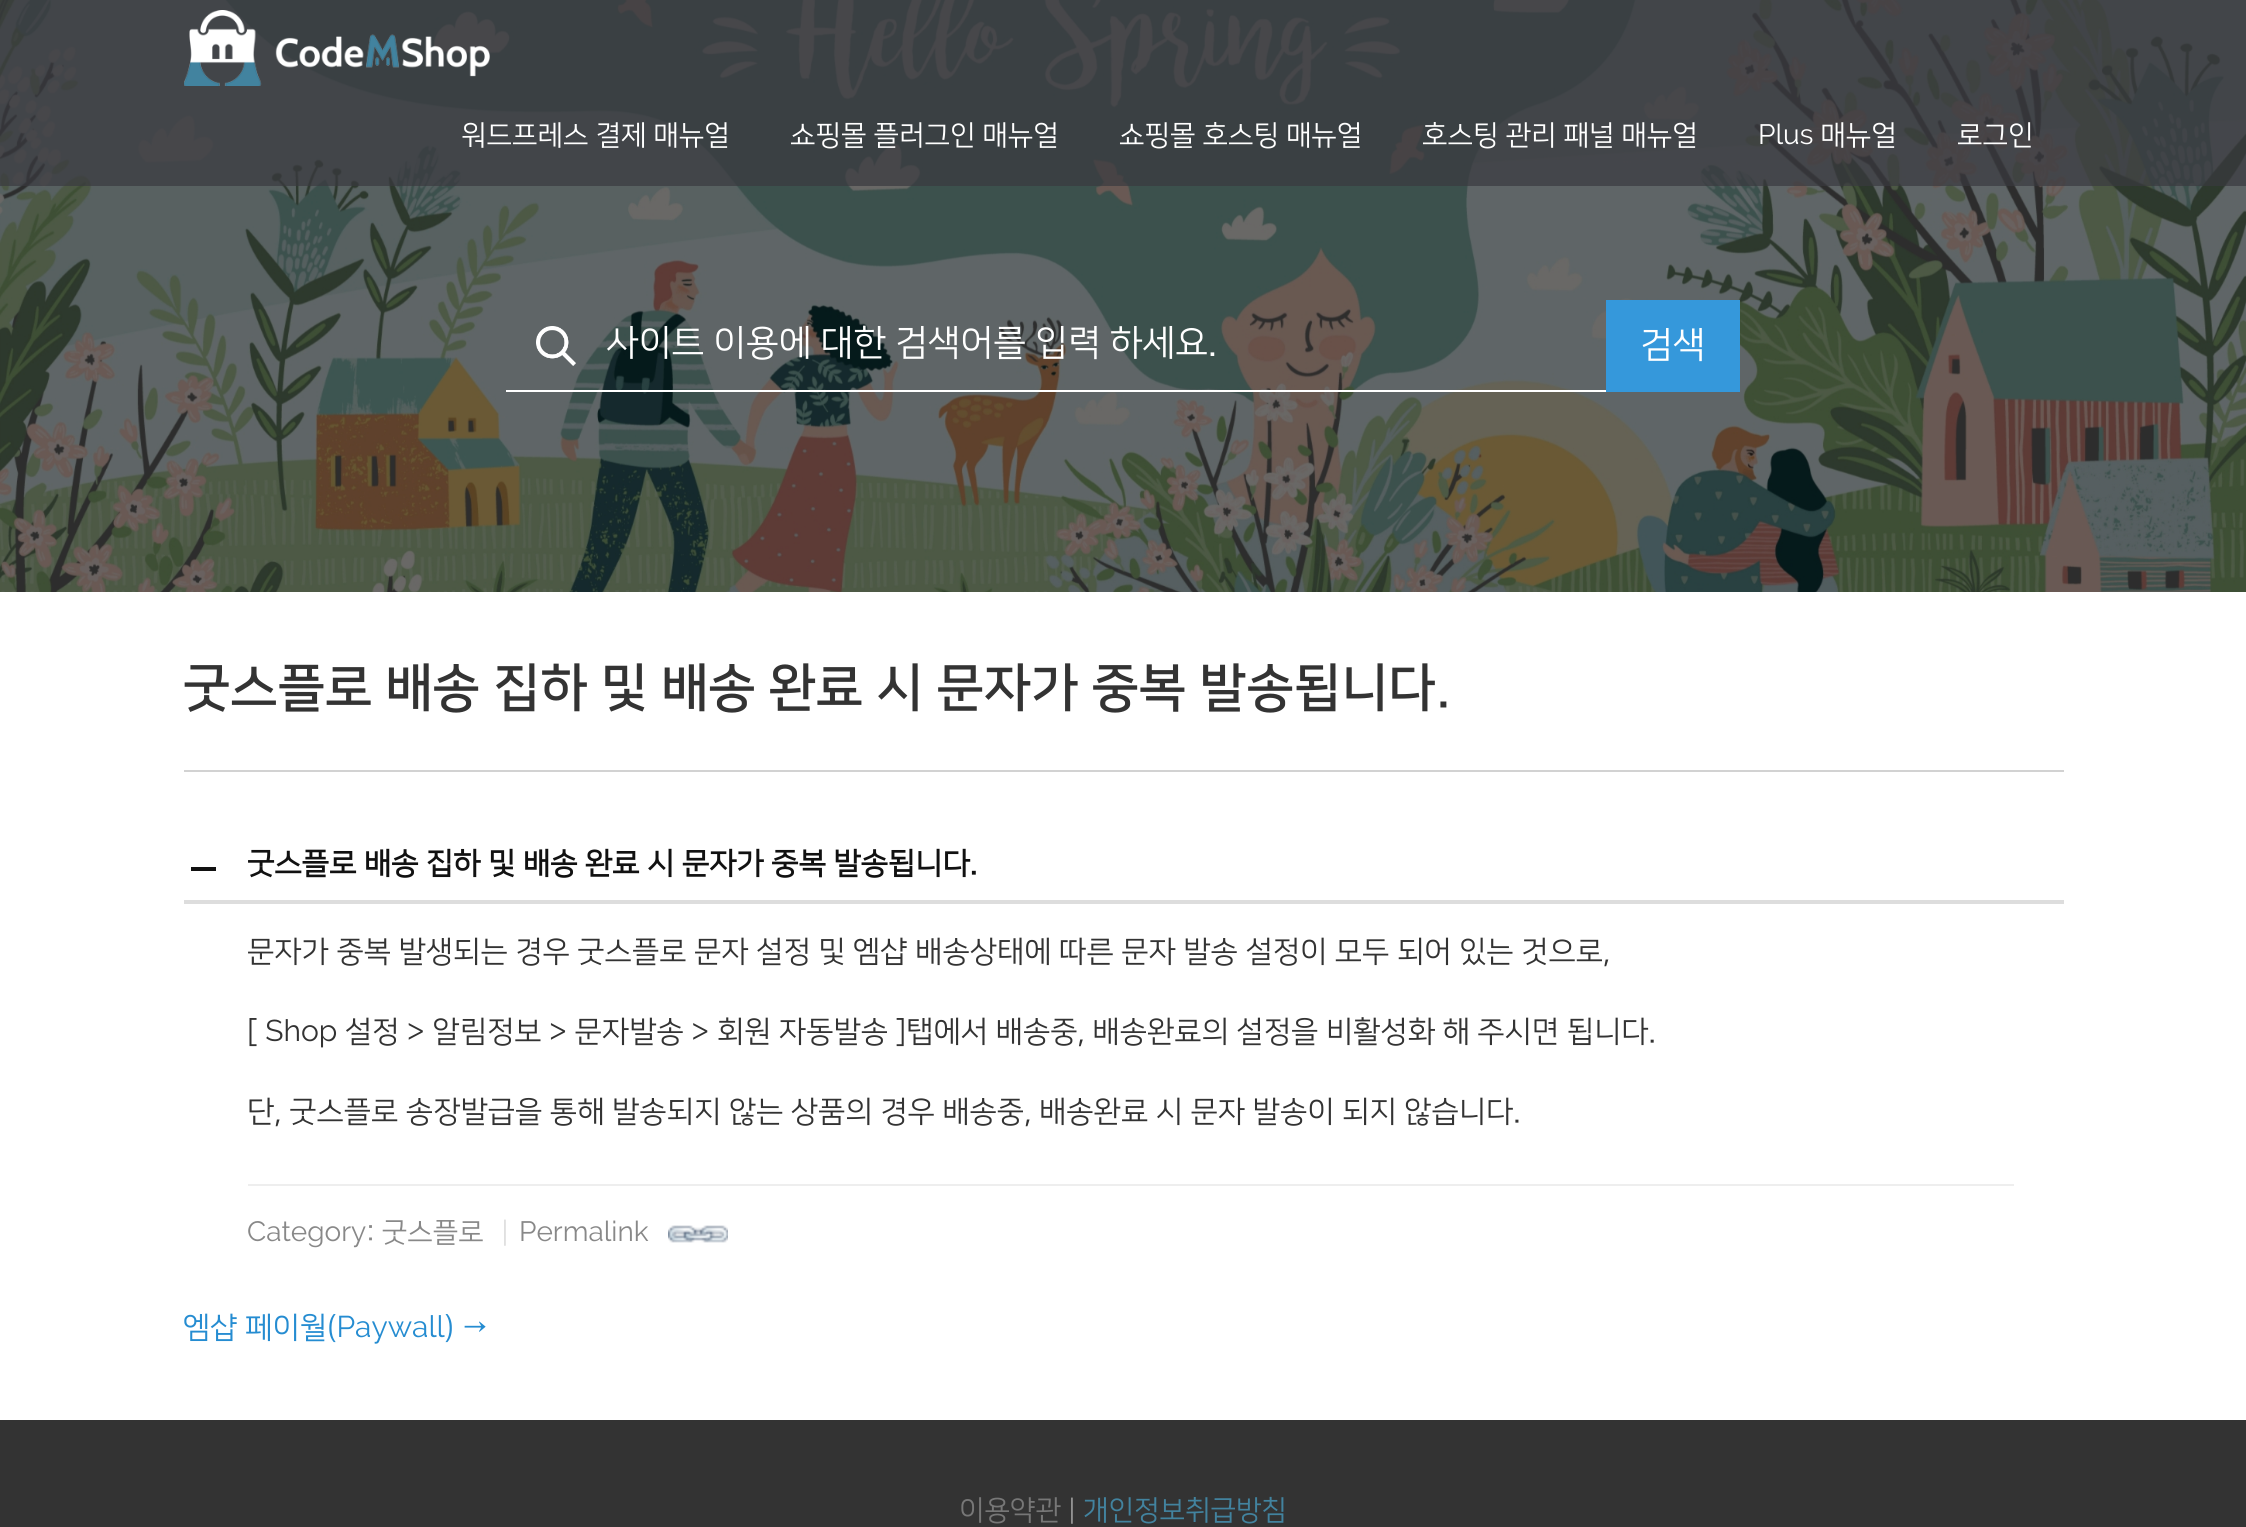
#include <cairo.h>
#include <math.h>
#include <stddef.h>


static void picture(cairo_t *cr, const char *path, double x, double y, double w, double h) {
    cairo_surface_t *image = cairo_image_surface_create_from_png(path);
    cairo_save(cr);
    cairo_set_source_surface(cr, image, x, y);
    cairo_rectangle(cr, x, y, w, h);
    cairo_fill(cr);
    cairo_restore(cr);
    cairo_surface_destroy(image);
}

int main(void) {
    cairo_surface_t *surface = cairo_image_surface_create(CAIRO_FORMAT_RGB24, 2246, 1527);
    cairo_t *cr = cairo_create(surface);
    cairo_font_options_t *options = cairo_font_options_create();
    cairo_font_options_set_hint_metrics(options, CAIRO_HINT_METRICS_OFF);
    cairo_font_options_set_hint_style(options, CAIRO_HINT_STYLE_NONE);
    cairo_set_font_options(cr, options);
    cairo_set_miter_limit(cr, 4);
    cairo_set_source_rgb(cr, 1, 1, 1);
    cairo_paint(cr);
    picture(cr, "img2.png", 0, 0, 2246, 592);
    cairo_set_source_rgba(cr, 0.227, 0.227, 0.251, 0.7);
    cairo_rectangle(cr, 0, 0, 2246, 186);
    cairo_fill(cr);
    picture(cr, "img1.png", 184, 10, 306, 76);
    cairo_select_font_face(cr, "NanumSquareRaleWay", CAIRO_FONT_SLANT_NORMAL, CAIRO_FONT_WEIGHT_NORMAL);
    cairo_set_font_size(cr, 28);
    cairo_set_source_rgb(cr, 1, 1, 1);
    cairo_move_to(cr, 461, 144);
    cairo_show_text(cr, "워드프레스 결제 매뉴얼");
    cairo_move_to(cr, 790, 144);
    cairo_show_text(cr, "쇼핑몰 플러그인 매뉴얼");
    cairo_move_to(cr, 1119, 144);
    cairo_show_text(cr, "쇼핑몰 호스팅 매뉴얼");
    cairo_move_to(cr, 1422, 144);
    cairo_show_text(cr, "호스팅 관리 패널 매뉴얼");
    cairo_move_to(cr, 1758, 144);
    cairo_show_text(cr, "Plus 매뉴얼");
    cairo_move_to(cr, 1957, 144);
    cairo_show_text(cr, "로그인");
    picture(cr, "img3.png", 536, 326, 40, 40);
    cairo_rectangle(cr, 506, 390, 1102, 2);
    cairo_fill(cr);
    cairo_set_font_size(cr, 36);
    cairo_move_to(cr, 606, 354);
    cairo_show_text(cr, "사이트 이용에 대한 검색어를 입력 하세요.");
    cairo_set_source_rgb(cr, 0.208, 0.596, 0.859);
    cairo_rectangle(cr, 1606, 300, 134, 92);
    cairo_fill(cr);
    cairo_set_source_rgb(cr, 1, 1, 1);
    cairo_move_to(cr, 1640, 356);
    cairo_show_text(cr, "검색");
    cairo_set_source_rgb(cr, 0.824, 0.824, 0.824);
    cairo_rectangle(cr, 184, 770, 1880, 2);
    cairo_fill(cr);
    cairo_select_font_face(cr, "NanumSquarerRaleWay", CAIRO_FONT_SLANT_NORMAL, CAIRO_FONT_WEIGHT_BOLD);
    cairo_set_font_size(cr, 52);
    cairo_set_source_rgb(cr, 0.2, 0.2, 0.2);
    cairo_move_to(cr, 183, 704);
    cairo_show_text(cr, "굿스플로 배송 집하 및 배송 완료 시 문자가 중복 발송됩니다.");
    cairo_set_source_rgb(cr, 0.867, 0.867, 0.867);
    cairo_rectangle(cr, 184, 900, 1880, 4);
    cairo_fill(cr);
    cairo_set_source_rgb(cr, 0.067, 0.067, 0.067);
    cairo_rectangle(cr, 191, 867, 25, 4);
    cairo_fill(cr);
    cairo_select_font_face(cr, "NanumSquareRaleWay", CAIRO_FONT_SLANT_NORMAL, CAIRO_FONT_WEIGHT_BOLD);
    cairo_set_font_size(cr, 30);
    cairo_move_to(cr, 247, 873);
    cairo_show_text(cr, "굿스플로 배송 집하 및 배송 완료 시 문자가 중복 발송됩니다.");
    cairo_set_source_rgb(cr, 0.933, 0.933, 0.933);
    cairo_rectangle(cr, 248, 1184, 1766, 2);
    cairo_fill(cr);
    cairo_select_font_face(cr, "NanumSquareRaleWay", CAIRO_FONT_SLANT_NORMAL, CAIRO_FONT_WEIGHT_NORMAL);
    cairo_set_source_rgb(cr, 0.2, 0.2, 0.2);
    cairo_move_to(cr, 247, 961);
    cairo_show_text(cr, "문자가 중복 발생되는 경우 굿스플로 문자 설정 및 엠샵 배송상태에 따른 문자 발송 설정이 모두 되어 있는 것으로,");
    cairo_move_to(cr, 247, 1041);
    cairo_show_text(cr, "[ Shop 설정 > 알림정보 > 문자발송 > 회원 자동발송 ]탭에서 배송중, 배송완료의 설정을 비활성화 해 주시면 됩니다.");
    cairo_move_to(cr, 247, 1121);
    cairo_show_text(cr, "단, 굿스플로 송장발급을 통해 발송되지 않는 상품의 경우 배송중, 배송완료 시 문자 발송이 되지 않습니다.");
    cairo_set_font_size(cr, 28);
    cairo_set_source_rgb(cr, 0.533, 0.533, 0.533);
    cairo_move_to(cr, 247, 1241);
    cairo_show_text(cr, "Category: 굿스플로");
    cairo_set_source_rgb(cr, 0.867, 0.867, 0.867);
    cairo_move_to(cr, 501, 1241);
    cairo_show_text(cr, "|");
    cairo_set_source_rgb(cr, 0.533, 0.533, 0.533);
    cairo_move_to(cr, 519, 1241);
    cairo_show_text(cr, "Permalink");
    picture(cr, "img4.png", 668, 1225, 60, 18);
    cairo_set_font_size(cr, 30);
    cairo_set_source_rgb(cr, 0.145, 0.549, 0.82);
    cairo_move_to(cr, 183, 1337);
    cairo_show_text(cr, "엠샵 페이월(Paywall) →");
    cairo_set_source_rgb(cr, 0.2, 0.2, 0.2);
    cairo_rectangle(cr, 0, 1420, 2246, 107);
    cairo_fill(cr);
    cairo_set_font_size(cr, 28);
    cairo_set_source_rgb(cr, 0.467, 0.467, 0.467);
    cairo_move_to(cr, 959, 1519);
    cairo_show_text(cr, "이용약관");
    cairo_set_source_rgb(cr, 0.6, 0.6, 0.6);
    cairo_move_to(cr, 1068, 1519);
    cairo_show_text(cr, "|");
    cairo_set_source_rgb(cr, 0.259, 0.514, 0.624);
    cairo_move_to(cr, 1083, 1519);
    cairo_show_text(cr, "개인정보취급방침");
    cairo_surface_write_to_png(surface, "page.png");
    cairo_font_options_destroy(options);
    cairo_destroy(cr);
    cairo_surface_destroy(surface);
    return 0;
}
